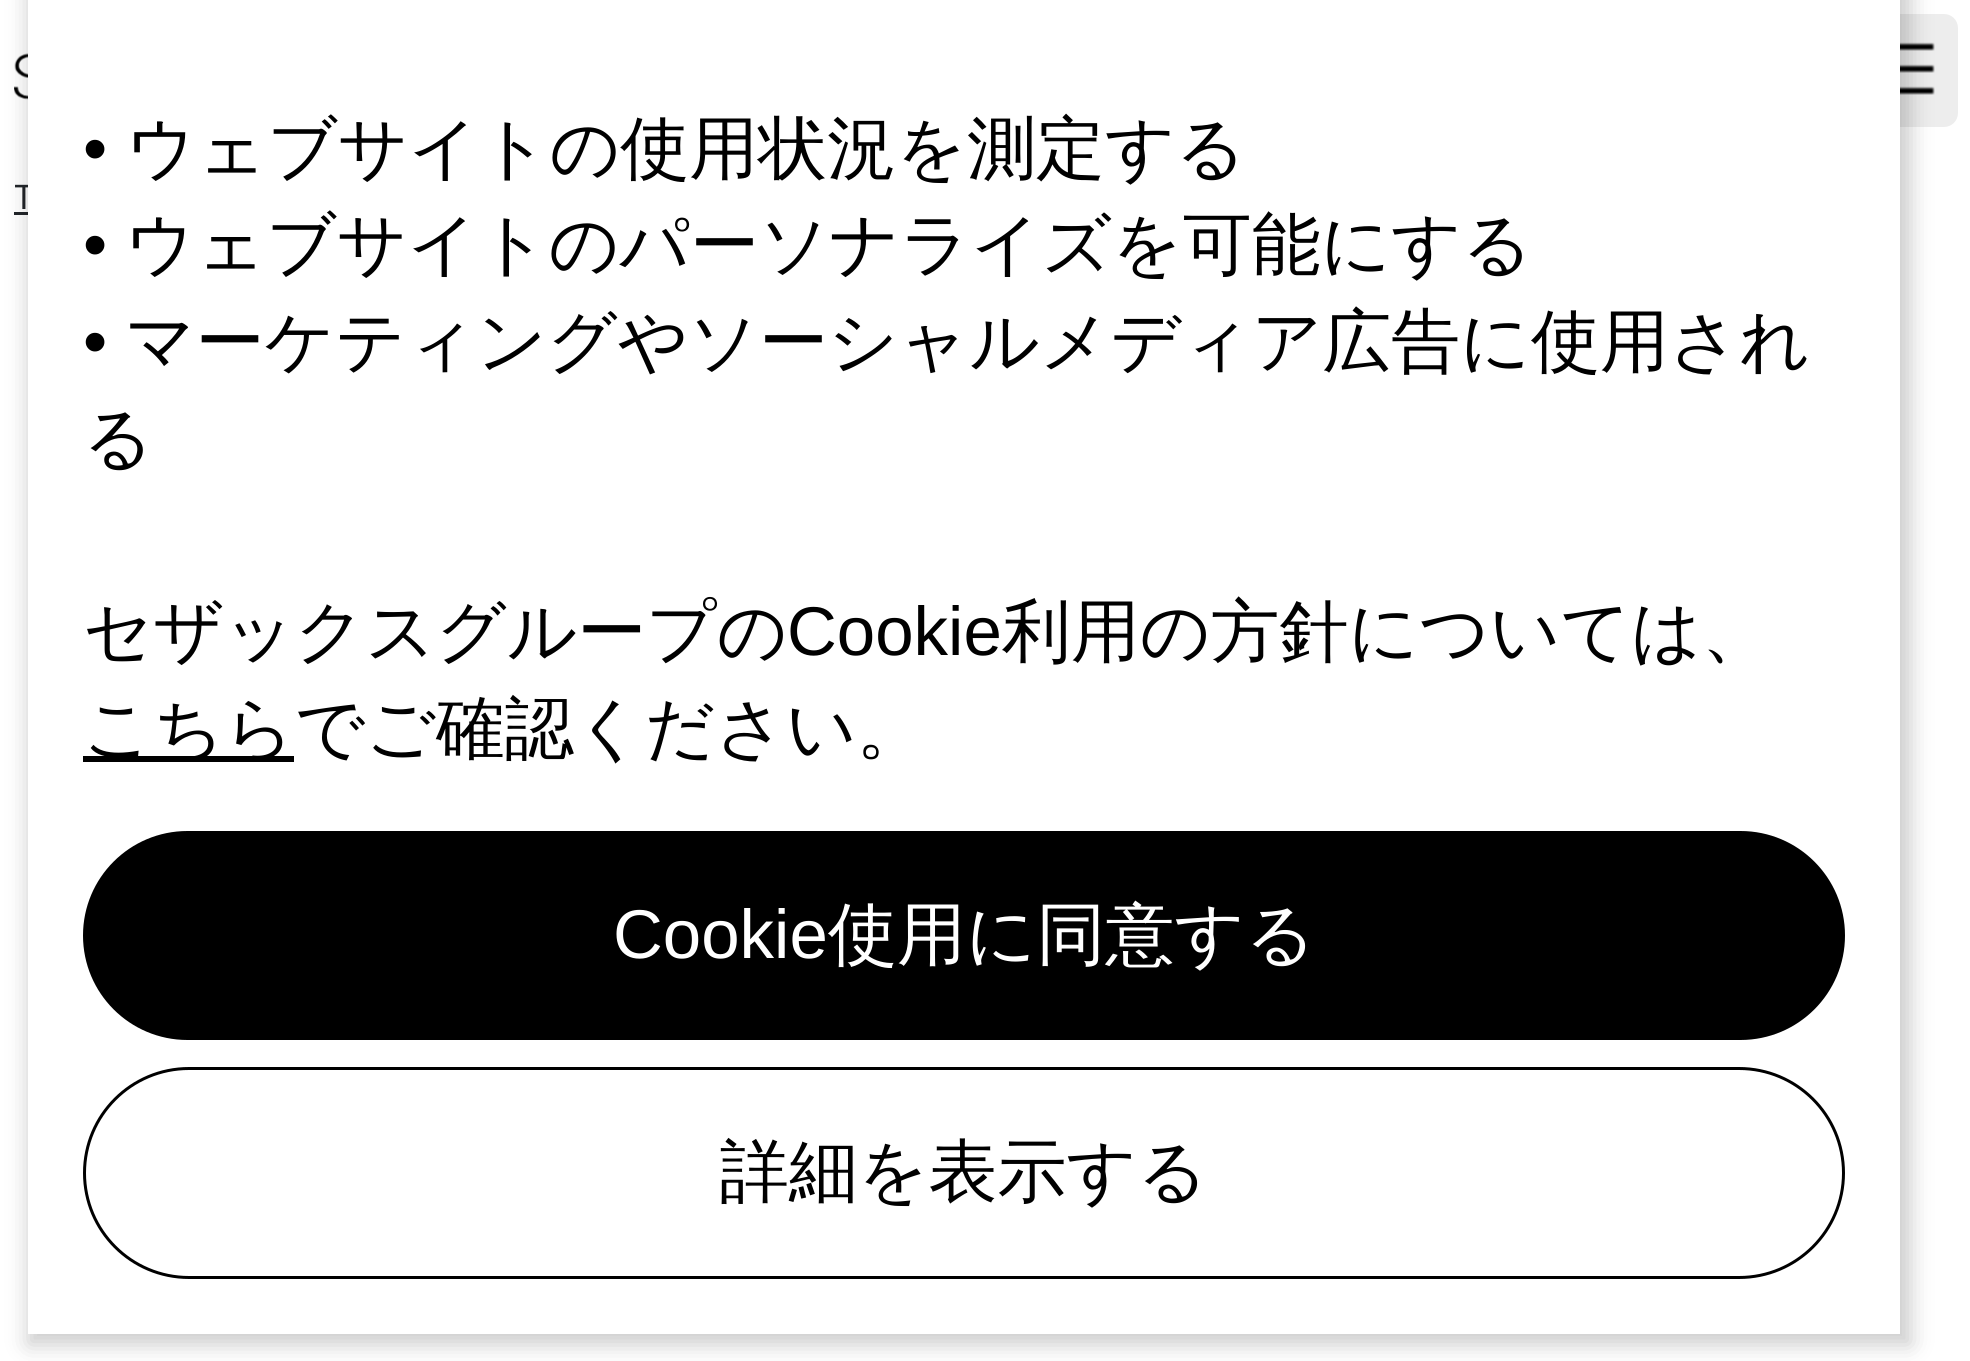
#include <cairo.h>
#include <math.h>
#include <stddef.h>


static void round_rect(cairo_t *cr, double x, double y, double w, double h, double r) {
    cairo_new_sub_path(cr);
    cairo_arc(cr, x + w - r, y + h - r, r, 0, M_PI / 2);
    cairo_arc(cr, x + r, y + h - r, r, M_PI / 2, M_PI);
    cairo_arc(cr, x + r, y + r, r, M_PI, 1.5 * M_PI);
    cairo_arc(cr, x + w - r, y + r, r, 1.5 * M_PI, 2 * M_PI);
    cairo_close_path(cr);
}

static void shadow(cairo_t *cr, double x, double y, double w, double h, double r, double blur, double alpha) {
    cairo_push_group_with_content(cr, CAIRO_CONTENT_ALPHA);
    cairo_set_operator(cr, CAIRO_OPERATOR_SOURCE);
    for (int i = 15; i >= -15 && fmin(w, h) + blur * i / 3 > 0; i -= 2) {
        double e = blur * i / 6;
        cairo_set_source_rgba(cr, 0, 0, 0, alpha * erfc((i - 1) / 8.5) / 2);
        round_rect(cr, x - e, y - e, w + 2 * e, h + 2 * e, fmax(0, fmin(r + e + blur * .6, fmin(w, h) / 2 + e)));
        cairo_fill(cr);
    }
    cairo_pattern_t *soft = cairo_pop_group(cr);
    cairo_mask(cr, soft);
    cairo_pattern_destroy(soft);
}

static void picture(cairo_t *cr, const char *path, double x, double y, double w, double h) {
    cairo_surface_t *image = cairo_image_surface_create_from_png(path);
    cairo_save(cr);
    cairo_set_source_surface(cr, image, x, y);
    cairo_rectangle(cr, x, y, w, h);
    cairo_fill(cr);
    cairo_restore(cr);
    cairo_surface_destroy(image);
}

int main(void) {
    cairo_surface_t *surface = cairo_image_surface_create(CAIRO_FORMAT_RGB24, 1970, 1361);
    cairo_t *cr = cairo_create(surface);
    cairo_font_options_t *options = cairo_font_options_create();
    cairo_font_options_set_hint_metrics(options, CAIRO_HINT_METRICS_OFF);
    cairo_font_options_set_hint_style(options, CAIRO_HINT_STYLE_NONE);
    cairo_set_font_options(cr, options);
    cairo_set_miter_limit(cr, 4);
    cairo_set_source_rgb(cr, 1, 1, 1);
    cairo_paint(cr);
    picture(cr, "img1.png", 14, 53, 14, 47);
    cairo_set_source_rgb(cr, 0.929, 0.929, 0.929);
    round_rect(cr, 1848, 14, 110, 113, 14);
    cairo_fill(cr);
    picture(cr, "img2.png", 1900, 42, 35, 53);
    cairo_select_font_face(cr, "Noto Sans JP", CAIRO_FONT_SLANT_NORMAL, CAIRO_FONT_WEIGHT_NORMAL);
    cairo_set_font_size(cr, 33);
    cairo_set_source_rgb(cr, 0.129, 0.145, 0.161);
    cairo_move_to(cr, 14, 209);
    cairo_show_text(cr, "T");
    cairo_rectangle(cr, 14, 212, 14, 3);
    cairo_fill(cr);
    cairo_set_source_rgb(cr, 0, 0, 0);
    shadow(cr, 28, -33, 1883, 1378, 0, 11, 0.2);
    cairo_set_source_rgb(cr, 1, 1, 1);
    cairo_rectangle(cr, 28, 0, 1872, 1334);
    cairo_fill(cr);
    cairo_select_font_face(cr, "Liberation Sans", CAIRO_FONT_SLANT_NORMAL, CAIRO_FONT_WEIGHT_NORMAL);
    cairo_set_font_size(cr, 69);
    cairo_set_source_rgb(cr, 0, 0, 0);
    cairo_move_to(cr, 83, 172);
    cairo_show_text(cr, "•");
    cairo_select_font_face(cr, "WenQuanYi Zen Hei Medium", CAIRO_FONT_SLANT_NORMAL, CAIRO_FONT_WEIGHT_NORMAL);
    cairo_move_to(cr, 126, 172);
    cairo_show_text(cr, "ウェブサイトの使用状況を測定する");
    cairo_select_font_face(cr, "Liberation Sans", CAIRO_FONT_SLANT_NORMAL, CAIRO_FONT_WEIGHT_NORMAL);
    cairo_move_to(cr, 83, 268);
    cairo_show_text(cr, "•");
    cairo_select_font_face(cr, "WenQuanYi Zen Hei Medium", CAIRO_FONT_SLANT_NORMAL, CAIRO_FONT_WEIGHT_NORMAL);
    cairo_move_to(cr, 125, 268);
    cairo_show_text(cr, "ウェブサイトのパーソナライズを可能にする");
    cairo_select_font_face(cr, "Liberation Sans", CAIRO_FONT_SLANT_NORMAL, CAIRO_FONT_WEIGHT_NORMAL);
    cairo_move_to(cr, 83, 365);
    cairo_show_text(cr, "•");
    cairo_select_font_face(cr, "WenQuanYi Zen Hei Medium", CAIRO_FONT_SLANT_NORMAL, CAIRO_FONT_WEIGHT_NORMAL);
    cairo_move_to(cr, 125, 365);
    cairo_show_text(cr, "マーケティングやソーシャルメディア広告に使用され");
    cairo_move_to(cr, 83, 462);
    cairo_show_text(cr, "る");
    cairo_move_to(cr, 83, 655);
    cairo_show_text(cr, "セザックスグループの");
    cairo_select_font_face(cr, "Liberation Sans", CAIRO_FONT_SLANT_NORMAL, CAIRO_FONT_WEIGHT_NORMAL);
    cairo_move_to(cr, 787, 655);
    cairo_show_text(cr, "Cookie");
    cairo_select_font_face(cr, "WenQuanYi Zen Hei Medium", CAIRO_FONT_SLANT_NORMAL, CAIRO_FONT_WEIGHT_NORMAL);
    cairo_move_to(cr, 1002, 655);
    cairo_show_text(cr, "利用の方針については、");
    cairo_rectangle(cr, 83, 756, 211, 6);
    cairo_fill(cr);
    cairo_move_to(cr, 83, 752);
    cairo_show_text(cr, "こちらでご確認ください。");
    round_rect(cr, 83, 831, 1762, 209, 104.5);
    cairo_fill(cr);
    cairo_select_font_face(cr, "Liberation Sans", CAIRO_FONT_SLANT_NORMAL, CAIRO_FONT_WEIGHT_NORMAL);
    cairo_set_source_rgb(cr, 1, 1, 1);
    cairo_move_to(cr, 613, 958);
    cairo_show_text(cr, "Cookie");
    cairo_select_font_face(cr, "WenQuanYi Zen Hei Medium", CAIRO_FONT_SLANT_NORMAL, CAIRO_FONT_WEIGHT_NORMAL);
    cairo_move_to(cr, 828, 958);
    cairo_show_text(cr, "使用に同意する");
    round_rect(cr, 84.5, 1068.5, 1759, 209, 104.5);
    cairo_set_source_rgb(cr, 0, 0, 0);
    cairo_set_line_width(cr, 3);
    cairo_stroke(cr);
    cairo_move_to(cr, 720, 1195);
    cairo_show_text(cr, "詳細を表示する");
    cairo_surface_write_to_png(surface, "page.png");
    cairo_font_options_destroy(options);
    cairo_destroy(cr);
    cairo_surface_destroy(surface);
    return 0;
}
